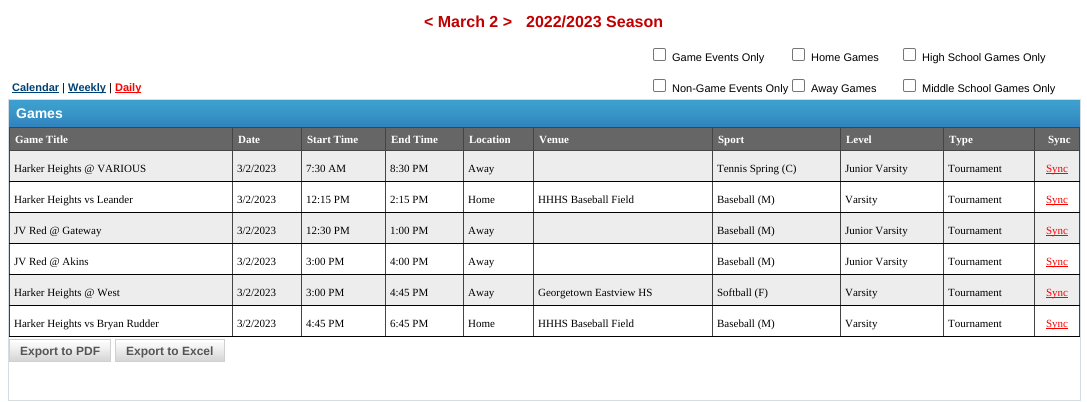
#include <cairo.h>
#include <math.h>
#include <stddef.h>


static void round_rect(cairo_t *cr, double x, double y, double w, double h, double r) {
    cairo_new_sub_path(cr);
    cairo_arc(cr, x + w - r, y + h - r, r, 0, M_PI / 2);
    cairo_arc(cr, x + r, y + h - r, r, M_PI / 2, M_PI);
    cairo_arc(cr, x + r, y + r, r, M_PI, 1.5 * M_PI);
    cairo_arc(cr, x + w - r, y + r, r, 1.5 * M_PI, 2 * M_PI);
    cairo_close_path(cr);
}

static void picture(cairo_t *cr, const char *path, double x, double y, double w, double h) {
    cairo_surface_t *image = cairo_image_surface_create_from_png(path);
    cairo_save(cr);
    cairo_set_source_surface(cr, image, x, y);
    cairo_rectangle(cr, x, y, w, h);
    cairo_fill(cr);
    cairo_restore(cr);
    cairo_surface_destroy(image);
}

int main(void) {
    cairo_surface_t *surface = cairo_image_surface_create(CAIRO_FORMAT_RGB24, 1087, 402);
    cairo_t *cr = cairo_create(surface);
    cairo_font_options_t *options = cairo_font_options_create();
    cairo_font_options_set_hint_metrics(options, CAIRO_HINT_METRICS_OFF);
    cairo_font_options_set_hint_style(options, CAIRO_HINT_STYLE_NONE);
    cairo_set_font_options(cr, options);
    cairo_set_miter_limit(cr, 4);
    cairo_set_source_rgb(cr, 1, 1, 1);
    cairo_paint(cr);
    cairo_select_font_face(cr, "Liberation Sans", CAIRO_FONT_SLANT_NORMAL, CAIRO_FONT_WEIGHT_BOLD);
    cairo_set_font_size(cr, 16);
    cairo_set_source_rgb(cr, 0.753, 0, 0);
    cairo_move_to(cr, 424, 27);
    cairo_show_text(cr, "< March 2 >");
    cairo_move_to(cr, 526, 27);
    cairo_show_text(cr, "2022/2023 Season");
    cairo_set_font_size(cr, 11);
    cairo_set_source_rgb(cr, 0, 0.255, 0.459);
    cairo_move_to(cr, 12, 91);
    cairo_show_text(cr, "Calendar");
    cairo_rectangle(cr, 12, 92, 47, 1);
    cairo_fill(cr);
    cairo_select_font_face(cr, "Liberation Sans", CAIRO_FONT_SLANT_NORMAL, CAIRO_FONT_WEIGHT_NORMAL);
    cairo_set_source_rgb(cr, 0, 0, 0);
    cairo_move_to(cr, 62, 91);
    cairo_show_text(cr, "|");
    cairo_set_source_rgb(cr, 0, 0.255, 0.459);
    cairo_rectangle(cr, 68, 92, 38, 1);
    cairo_fill(cr);
    cairo_select_font_face(cr, "Liberation Sans", CAIRO_FONT_SLANT_NORMAL, CAIRO_FONT_WEIGHT_BOLD);
    cairo_move_to(cr, 68, 91);
    cairo_show_text(cr, "Weekly");
    cairo_select_font_face(cr, "Liberation Sans", CAIRO_FONT_SLANT_NORMAL, CAIRO_FONT_WEIGHT_NORMAL);
    cairo_set_source_rgb(cr, 0, 0, 0);
    cairo_move_to(cr, 109, 91);
    cairo_show_text(cr, "|");
    cairo_set_source_rgb(cr, 1, 0, 0);
    cairo_rectangle(cr, 115, 92, 26, 1);
    cairo_fill(cr);
    cairo_select_font_face(cr, "Liberation Sans", CAIRO_FONT_SLANT_NORMAL, CAIRO_FONT_WEIGHT_BOLD);
    cairo_move_to(cr, 115, 91);
    cairo_show_text(cr, "Daily");
    round_rect(cr, 653.5, 48.5, 12, 12, 1.5);
    cairo_set_source_rgb(cr, 0.463, 0.463, 0.463);
    cairo_set_line_width(cr, 1);
    cairo_stroke(cr);
    cairo_select_font_face(cr, "Liberation Sans", CAIRO_FONT_SLANT_NORMAL, CAIRO_FONT_WEIGHT_NORMAL);
    cairo_set_source_rgb(cr, 0, 0, 0);
    cairo_move_to(cr, 672, 61);
    cairo_show_text(cr, "Game Events Only");
    round_rect(cr, 653.5, 79.5, 12, 12, 1.5);
    cairo_set_source_rgb(cr, 0.463, 0.463, 0.463);
    cairo_stroke(cr);
    cairo_set_source_rgb(cr, 0, 0, 0);
    cairo_move_to(cr, 672, 92);
    cairo_show_text(cr, "Non-Game Events Only");
    round_rect(cr, 792.5, 48.5, 12, 12, 1.5);
    cairo_set_source_rgb(cr, 0.463, 0.463, 0.463);
    cairo_stroke(cr);
    cairo_set_source_rgb(cr, 0, 0, 0);
    cairo_move_to(cr, 811, 61);
    cairo_show_text(cr, "Home Games");
    round_rect(cr, 792.5, 79.5, 12, 12, 1.5);
    cairo_set_source_rgb(cr, 0.463, 0.463, 0.463);
    cairo_stroke(cr);
    cairo_set_source_rgb(cr, 0, 0, 0);
    cairo_move_to(cr, 811, 92);
    cairo_show_text(cr, "Away Games");
    round_rect(cr, 903.5, 48.5, 12, 12, 1.5);
    cairo_set_source_rgb(cr, 0.463, 0.463, 0.463);
    cairo_stroke(cr);
    cairo_set_source_rgb(cr, 0, 0, 0);
    cairo_move_to(cr, 922, 61);
    cairo_show_text(cr, "High School Games Only");
    round_rect(cr, 903.5, 79.5, 12, 12, 1.5);
    cairo_set_source_rgb(cr, 0.463, 0.463, 0.463);
    cairo_stroke(cr);
    cairo_set_source_rgb(cr, 0, 0, 0);
    cairo_move_to(cr, 922, 92);
    cairo_show_text(cr, "Middle School Games Only");
    cairo_rectangle(cr, 8.5, 99.5, 1072, 301);
    cairo_set_source_rgb(cr, 0.831, 0.867, 0.886);
    cairo_stroke(cr);
    picture(cr, "img1.png", 9, 100, 1071, 27);
    cairo_select_font_face(cr, "Liberation Sans", CAIRO_FONT_SLANT_NORMAL, CAIRO_FONT_WEIGHT_BOLD);
    cairo_set_font_size(cr, 14);
    cairo_set_source_rgb(cr, 1, 1, 1);
    cairo_move_to(cr, 16, 118);
    cairo_show_text(cr, "Games");
    cairo_set_source_rgb(cr, 0.267, 0.267, 0.267);
    cairo_rectangle(cr, 9, 127, 1071, 1);
    cairo_fill(cr);
    cairo_rectangle(cr, 1079, 127, 1, 210);
    cairo_fill(cr);
    cairo_rectangle(cr, 9, 127, 1, 210);
    cairo_fill(cr);
    cairo_set_source_rgb(cr, 0.4, 0.4, 0.4);
    cairo_rectangle(cr, 10, 128, 222, 22);
    cairo_fill(cr);
    cairo_set_source_rgb(cr, 0, 0, 0);
    cairo_rectangle(cr, 1034, 336, 46, 1);
    cairo_fill(cr);
    cairo_set_source_rgb(cr, 0.267, 0.267, 0.267);
    cairo_rectangle(cr, 1034, 305, 1, 32);
    cairo_fill(cr);
    cairo_set_source_rgb(cr, 0, 0, 0);
    cairo_rectangle(cr, 1034, 305, 46, 1);
    cairo_fill(cr);
    cairo_set_source_rgb(cr, 0.267, 0.267, 0.267);
    cairo_rectangle(cr, 1034, 274, 1, 32);
    cairo_fill(cr);
    cairo_set_source_rgb(cr, 0, 0, 0);
    cairo_rectangle(cr, 1034, 274, 46, 1);
    cairo_fill(cr);
    cairo_set_source_rgb(cr, 0.267, 0.267, 0.267);
    cairo_rectangle(cr, 1034, 243, 1, 32);
    cairo_fill(cr);
    cairo_set_source_rgb(cr, 0, 0, 0);
    cairo_rectangle(cr, 1034, 243, 46, 1);
    cairo_fill(cr);
    cairo_set_source_rgb(cr, 0.267, 0.267, 0.267);
    cairo_rectangle(cr, 1034, 212, 1, 32);
    cairo_fill(cr);
    cairo_set_source_rgb(cr, 0, 0, 0);
    cairo_rectangle(cr, 1034, 212, 46, 1);
    cairo_fill(cr);
    cairo_set_source_rgb(cr, 0.267, 0.267, 0.267);
    cairo_rectangle(cr, 1034, 181, 1, 32);
    cairo_fill(cr);
    cairo_set_source_rgb(cr, 0, 0, 0);
    cairo_rectangle(cr, 1034, 181, 46, 1);
    cairo_fill(cr);
    cairo_set_source_rgb(cr, 0.267, 0.267, 0.267);
    cairo_rectangle(cr, 1034, 150, 1, 32);
    cairo_fill(cr);
    cairo_rectangle(cr, 1034, 150, 46, 1);
    cairo_fill(cr);
    cairo_rectangle(cr, 1034, 127, 1, 24);
    cairo_fill(cr);
    cairo_set_source_rgb(cr, 0, 0, 0);
    cairo_rectangle(cr, 943, 336, 92, 1);
    cairo_fill(cr);
    cairo_set_source_rgb(cr, 0.267, 0.267, 0.267);
    cairo_rectangle(cr, 943, 305, 1, 32);
    cairo_fill(cr);
    cairo_set_source_rgb(cr, 0, 0, 0);
    cairo_rectangle(cr, 943, 305, 92, 1);
    cairo_fill(cr);
    cairo_set_source_rgb(cr, 0.267, 0.267, 0.267);
    cairo_rectangle(cr, 943, 274, 1, 32);
    cairo_fill(cr);
    cairo_set_source_rgb(cr, 0, 0, 0);
    cairo_rectangle(cr, 943, 274, 92, 1);
    cairo_fill(cr);
    cairo_set_source_rgb(cr, 0.267, 0.267, 0.267);
    cairo_rectangle(cr, 943, 243, 1, 32);
    cairo_fill(cr);
    cairo_set_source_rgb(cr, 0, 0, 0);
    cairo_rectangle(cr, 943, 243, 92, 1);
    cairo_fill(cr);
    cairo_set_source_rgb(cr, 0.267, 0.267, 0.267);
    cairo_rectangle(cr, 943, 212, 1, 32);
    cairo_fill(cr);
    cairo_set_source_rgb(cr, 0, 0, 0);
    cairo_rectangle(cr, 943, 212, 92, 1);
    cairo_fill(cr);
    cairo_set_source_rgb(cr, 0.267, 0.267, 0.267);
    cairo_rectangle(cr, 943, 181, 1, 32);
    cairo_fill(cr);
    cairo_set_source_rgb(cr, 0, 0, 0);
    cairo_rectangle(cr, 943, 181, 92, 1);
    cairo_fill(cr);
    cairo_set_source_rgb(cr, 0.267, 0.267, 0.267);
    cairo_rectangle(cr, 943, 150, 1, 32);
    cairo_fill(cr);
    cairo_rectangle(cr, 943, 150, 92, 1);
    cairo_fill(cr);
    cairo_rectangle(cr, 943, 127, 1, 24);
    cairo_fill(cr);
    cairo_set_source_rgb(cr, 0, 0, 0);
    cairo_rectangle(cr, 840, 336, 104, 1);
    cairo_fill(cr);
    cairo_set_source_rgb(cr, 0.267, 0.267, 0.267);
    cairo_rectangle(cr, 840, 305, 1, 32);
    cairo_fill(cr);
    cairo_set_source_rgb(cr, 0, 0, 0);
    cairo_rectangle(cr, 840, 305, 104, 1);
    cairo_fill(cr);
    cairo_set_source_rgb(cr, 0.267, 0.267, 0.267);
    cairo_rectangle(cr, 840, 274, 1, 32);
    cairo_fill(cr);
    cairo_set_source_rgb(cr, 0, 0, 0);
    cairo_rectangle(cr, 840, 274, 104, 1);
    cairo_fill(cr);
    cairo_set_source_rgb(cr, 0.267, 0.267, 0.267);
    cairo_rectangle(cr, 840, 243, 1, 32);
    cairo_fill(cr);
    cairo_set_source_rgb(cr, 0, 0, 0);
    cairo_rectangle(cr, 840, 243, 104, 1);
    cairo_fill(cr);
    cairo_set_source_rgb(cr, 0.267, 0.267, 0.267);
    cairo_rectangle(cr, 840, 212, 1, 32);
    cairo_fill(cr);
    cairo_set_source_rgb(cr, 0, 0, 0);
    cairo_rectangle(cr, 840, 212, 104, 1);
    cairo_fill(cr);
    cairo_set_source_rgb(cr, 0.267, 0.267, 0.267);
    cairo_rectangle(cr, 840, 181, 1, 32);
    cairo_fill(cr);
    cairo_set_source_rgb(cr, 0, 0, 0);
    cairo_rectangle(cr, 840, 181, 104, 1);
    cairo_fill(cr);
    cairo_set_source_rgb(cr, 0.267, 0.267, 0.267);
    cairo_rectangle(cr, 840, 150, 1, 32);
    cairo_fill(cr);
    cairo_rectangle(cr, 840, 150, 104, 1);
    cairo_fill(cr);
    cairo_rectangle(cr, 840, 127, 1, 24);
    cairo_fill(cr);
    cairo_set_source_rgb(cr, 0, 0, 0);
    cairo_rectangle(cr, 712, 336, 129, 1);
    cairo_fill(cr);
    cairo_set_source_rgb(cr, 0.267, 0.267, 0.267);
    cairo_rectangle(cr, 712, 305, 1, 32);
    cairo_fill(cr);
    cairo_set_source_rgb(cr, 0, 0, 0);
    cairo_rectangle(cr, 712, 305, 129, 1);
    cairo_fill(cr);
    cairo_set_source_rgb(cr, 0.267, 0.267, 0.267);
    cairo_rectangle(cr, 712, 274, 1, 32);
    cairo_fill(cr);
    cairo_set_source_rgb(cr, 0, 0, 0);
    cairo_rectangle(cr, 712, 274, 129, 1);
    cairo_fill(cr);
    cairo_set_source_rgb(cr, 0.267, 0.267, 0.267);
    cairo_rectangle(cr, 712, 243, 1, 32);
    cairo_fill(cr);
    cairo_set_source_rgb(cr, 0, 0, 0);
    cairo_rectangle(cr, 712, 243, 129, 1);
    cairo_fill(cr);
    cairo_set_source_rgb(cr, 0.267, 0.267, 0.267);
    cairo_rectangle(cr, 712, 212, 1, 32);
    cairo_fill(cr);
    cairo_set_source_rgb(cr, 0, 0, 0);
    cairo_rectangle(cr, 712, 212, 129, 1);
    cairo_fill(cr);
    cairo_set_source_rgb(cr, 0.267, 0.267, 0.267);
    cairo_rectangle(cr, 712, 181, 1, 32);
    cairo_fill(cr);
    cairo_set_source_rgb(cr, 0, 0, 0);
    cairo_rectangle(cr, 712, 181, 129, 1);
    cairo_fill(cr);
    cairo_set_source_rgb(cr, 0.267, 0.267, 0.267);
    cairo_rectangle(cr, 712, 150, 1, 32);
    cairo_fill(cr);
    cairo_rectangle(cr, 712, 150, 129, 1);
    cairo_fill(cr);
    cairo_rectangle(cr, 712, 127, 1, 24);
    cairo_fill(cr);
    cairo_set_source_rgb(cr, 0, 0, 0);
    cairo_rectangle(cr, 533, 336, 180, 1);
    cairo_fill(cr);
    cairo_set_source_rgb(cr, 0.267, 0.267, 0.267);
    cairo_rectangle(cr, 533, 305, 1, 32);
    cairo_fill(cr);
    cairo_set_source_rgb(cr, 0, 0, 0);
    cairo_rectangle(cr, 533, 305, 180, 1);
    cairo_fill(cr);
    cairo_set_source_rgb(cr, 0.267, 0.267, 0.267);
    cairo_rectangle(cr, 533, 274, 1, 32);
    cairo_fill(cr);
    cairo_set_source_rgb(cr, 0, 0, 0);
    cairo_rectangle(cr, 533, 274, 180, 1);
    cairo_fill(cr);
    cairo_set_source_rgb(cr, 0.267, 0.267, 0.267);
    cairo_rectangle(cr, 533, 243, 1, 32);
    cairo_fill(cr);
    cairo_set_source_rgb(cr, 0, 0, 0);
    cairo_rectangle(cr, 533, 243, 180, 1);
    cairo_fill(cr);
    cairo_set_source_rgb(cr, 0.267, 0.267, 0.267);
    cairo_rectangle(cr, 533, 212, 1, 32);
    cairo_fill(cr);
    cairo_set_source_rgb(cr, 0, 0, 0);
    cairo_rectangle(cr, 533, 212, 180, 1);
    cairo_fill(cr);
    cairo_set_source_rgb(cr, 0.267, 0.267, 0.267);
    cairo_rectangle(cr, 533, 181, 1, 32);
    cairo_fill(cr);
    cairo_set_source_rgb(cr, 0, 0, 0);
    cairo_rectangle(cr, 533, 181, 180, 1);
    cairo_fill(cr);
    cairo_set_source_rgb(cr, 0.267, 0.267, 0.267);
    cairo_rectangle(cr, 533, 150, 1, 32);
    cairo_fill(cr);
    cairo_rectangle(cr, 533, 150, 180, 1);
    cairo_fill(cr);
    cairo_rectangle(cr, 533, 127, 1, 24);
    cairo_fill(cr);
    cairo_set_source_rgb(cr, 0, 0, 0);
    cairo_rectangle(cr, 463, 336, 71, 1);
    cairo_fill(cr);
    cairo_set_source_rgb(cr, 0.267, 0.267, 0.267);
    cairo_rectangle(cr, 463, 305, 1, 32);
    cairo_fill(cr);
    cairo_set_source_rgb(cr, 0, 0, 0);
    cairo_rectangle(cr, 463, 305, 71, 1);
    cairo_fill(cr);
    cairo_set_source_rgb(cr, 0.267, 0.267, 0.267);
    cairo_rectangle(cr, 463, 274, 1, 32);
    cairo_fill(cr);
    cairo_set_source_rgb(cr, 0, 0, 0);
    cairo_rectangle(cr, 463, 274, 71, 1);
    cairo_fill(cr);
    cairo_set_source_rgb(cr, 0.267, 0.267, 0.267);
    cairo_rectangle(cr, 463, 243, 1, 32);
    cairo_fill(cr);
    cairo_set_source_rgb(cr, 0, 0, 0);
    cairo_rectangle(cr, 463, 243, 71, 1);
    cairo_fill(cr);
    cairo_set_source_rgb(cr, 0.267, 0.267, 0.267);
    cairo_rectangle(cr, 463, 212, 1, 32);
    cairo_fill(cr);
    cairo_set_source_rgb(cr, 0, 0, 0);
    cairo_rectangle(cr, 463, 212, 71, 1);
    cairo_fill(cr);
    cairo_set_source_rgb(cr, 0.267, 0.267, 0.267);
    cairo_rectangle(cr, 463, 181, 1, 32);
    cairo_fill(cr);
    cairo_set_source_rgb(cr, 0, 0, 0);
    cairo_rectangle(cr, 463, 181, 71, 1);
    cairo_fill(cr);
    cairo_set_source_rgb(cr, 0.267, 0.267, 0.267);
    cairo_rectangle(cr, 463, 150, 1, 32);
    cairo_fill(cr);
    cairo_rectangle(cr, 463, 150, 71, 1);
    cairo_fill(cr);
    cairo_rectangle(cr, 463, 127, 1, 24);
    cairo_fill(cr);
    cairo_set_source_rgb(cr, 0, 0, 0);
    cairo_rectangle(cr, 385, 336, 79, 1);
    cairo_fill(cr);
    cairo_set_source_rgb(cr, 0.267, 0.267, 0.267);
    cairo_rectangle(cr, 385, 305, 1, 32);
    cairo_fill(cr);
    cairo_set_source_rgb(cr, 0, 0, 0);
    cairo_rectangle(cr, 385, 305, 79, 1);
    cairo_fill(cr);
    cairo_set_source_rgb(cr, 0.267, 0.267, 0.267);
    cairo_rectangle(cr, 385, 274, 1, 32);
    cairo_fill(cr);
    cairo_set_source_rgb(cr, 0, 0, 0);
    cairo_rectangle(cr, 385, 274, 79, 1);
    cairo_fill(cr);
    cairo_set_source_rgb(cr, 0.267, 0.267, 0.267);
    cairo_rectangle(cr, 385, 243, 1, 32);
    cairo_fill(cr);
    cairo_set_source_rgb(cr, 0, 0, 0);
    cairo_rectangle(cr, 385, 243, 79, 1);
    cairo_fill(cr);
    cairo_set_source_rgb(cr, 0.267, 0.267, 0.267);
    cairo_rectangle(cr, 385, 212, 1, 32);
    cairo_fill(cr);
    cairo_set_source_rgb(cr, 0, 0, 0);
    cairo_rectangle(cr, 385, 212, 79, 1);
    cairo_fill(cr);
    cairo_set_source_rgb(cr, 0.267, 0.267, 0.267);
    cairo_rectangle(cr, 385, 181, 1, 32);
    cairo_fill(cr);
    cairo_set_source_rgb(cr, 0, 0, 0);
    cairo_rectangle(cr, 385, 181, 79, 1);
    cairo_fill(cr);
    cairo_set_source_rgb(cr, 0.267, 0.267, 0.267);
    cairo_rectangle(cr, 385, 150, 1, 32);
    cairo_fill(cr);
    cairo_rectangle(cr, 385, 150, 79, 1);
    cairo_fill(cr);
    cairo_rectangle(cr, 385, 127, 1, 24);
    cairo_fill(cr);
    cairo_set_source_rgb(cr, 0, 0, 0);
    cairo_rectangle(cr, 301, 336, 85, 1);
    cairo_fill(cr);
    cairo_set_source_rgb(cr, 0.267, 0.267, 0.267);
    cairo_rectangle(cr, 301, 305, 1, 32);
    cairo_fill(cr);
    cairo_set_source_rgb(cr, 0, 0, 0);
    cairo_rectangle(cr, 301, 305, 85, 1);
    cairo_fill(cr);
    cairo_set_source_rgb(cr, 0.267, 0.267, 0.267);
    cairo_rectangle(cr, 301, 274, 1, 32);
    cairo_fill(cr);
    cairo_set_source_rgb(cr, 0, 0, 0);
    cairo_rectangle(cr, 301, 274, 85, 1);
    cairo_fill(cr);
    cairo_set_source_rgb(cr, 0.267, 0.267, 0.267);
    cairo_rectangle(cr, 301, 243, 1, 32);
    cairo_fill(cr);
    cairo_set_source_rgb(cr, 0, 0, 0);
    cairo_rectangle(cr, 301, 243, 85, 1);
    cairo_fill(cr);
    cairo_set_source_rgb(cr, 0.267, 0.267, 0.267);
    cairo_rectangle(cr, 301, 212, 1, 32);
    cairo_fill(cr);
    cairo_set_source_rgb(cr, 0, 0, 0);
    cairo_rectangle(cr, 301, 212, 85, 1);
    cairo_fill(cr);
    cairo_set_source_rgb(cr, 0.267, 0.267, 0.267);
    cairo_rectangle(cr, 301, 181, 1, 32);
    cairo_fill(cr);
    cairo_set_source_rgb(cr, 0, 0, 0);
    cairo_rectangle(cr, 301, 181, 85, 1);
    cairo_fill(cr);
    cairo_set_source_rgb(cr, 0.267, 0.267, 0.267);
    cairo_rectangle(cr, 301, 150, 1, 32);
    cairo_fill(cr);
    cairo_rectangle(cr, 301, 150, 85, 1);
    cairo_fill(cr);
    cairo_rectangle(cr, 301, 127, 1, 24);
    cairo_fill(cr);
    cairo_set_source_rgb(cr, 0, 0, 0);
    cairo_rectangle(cr, 232, 336, 70, 1);
    cairo_fill(cr);
    cairo_set_source_rgb(cr, 0.267, 0.267, 0.267);
    cairo_rectangle(cr, 232, 305, 1, 32);
    cairo_fill(cr);
    cairo_set_source_rgb(cr, 0, 0, 0);
    cairo_rectangle(cr, 232, 305, 70, 1);
    cairo_fill(cr);
    cairo_set_source_rgb(cr, 0.267, 0.267, 0.267);
    cairo_rectangle(cr, 232, 274, 1, 32);
    cairo_fill(cr);
    cairo_set_source_rgb(cr, 0, 0, 0);
    cairo_rectangle(cr, 232, 274, 70, 1);
    cairo_fill(cr);
    cairo_set_source_rgb(cr, 0.267, 0.267, 0.267);
    cairo_rectangle(cr, 232, 243, 1, 32);
    cairo_fill(cr);
    cairo_set_source_rgb(cr, 0, 0, 0);
    cairo_rectangle(cr, 232, 243, 70, 1);
    cairo_fill(cr);
    cairo_set_source_rgb(cr, 0.267, 0.267, 0.267);
    cairo_rectangle(cr, 232, 212, 1, 32);
    cairo_fill(cr);
    cairo_set_source_rgb(cr, 0, 0, 0);
    cairo_rectangle(cr, 232, 212, 70, 1);
    cairo_fill(cr);
    cairo_set_source_rgb(cr, 0.267, 0.267, 0.267);
    cairo_rectangle(cr, 232, 181, 1, 32);
    cairo_fill(cr);
    cairo_set_source_rgb(cr, 0, 0, 0);
    cairo_rectangle(cr, 232, 181, 70, 1);
    cairo_fill(cr);
    cairo_set_source_rgb(cr, 0.267, 0.267, 0.267);
    cairo_rectangle(cr, 232, 150, 1, 32);
    cairo_fill(cr);
    cairo_rectangle(cr, 232, 150, 70, 1);
    cairo_fill(cr);
    cairo_rectangle(cr, 232, 127, 1, 24);
    cairo_fill(cr);
    cairo_rectangle(cr, 9, 150, 224, 1);
    cairo_fill(cr);
    cairo_select_font_face(cr, "Liberation Serif", CAIRO_FONT_SLANT_NORMAL, CAIRO_FONT_WEIGHT_BOLD);
    cairo_set_font_size(cr, 11);
    cairo_set_source_rgb(cr, 1, 1, 1);
    cairo_move_to(cr, 15, 143);
    cairo_show_text(cr, "Game Title");
    cairo_set_source_rgb(cr, 0.4, 0.4, 0.4);
    cairo_rectangle(cr, 233, 128, 68, 22);
    cairo_fill(cr);
    cairo_set_source_rgb(cr, 1, 1, 1);
    cairo_move_to(cr, 238, 143);
    cairo_show_text(cr, "Date");
    cairo_set_source_rgb(cr, 0.4, 0.4, 0.4);
    cairo_rectangle(cr, 302, 128, 83, 22);
    cairo_fill(cr);
    cairo_set_source_rgb(cr, 1, 1, 1);
    cairo_move_to(cr, 307, 143);
    cairo_show_text(cr, "Start Time");
    cairo_set_source_rgb(cr, 0.4, 0.4, 0.4);
    cairo_rectangle(cr, 386, 128, 77, 22);
    cairo_fill(cr);
    cairo_set_source_rgb(cr, 1, 1, 1);
    cairo_move_to(cr, 391, 143);
    cairo_show_text(cr, "End Time");
    cairo_set_source_rgb(cr, 0.4, 0.4, 0.4);
    cairo_rectangle(cr, 464, 128, 69, 22);
    cairo_fill(cr);
    cairo_set_source_rgb(cr, 1, 1, 1);
    cairo_move_to(cr, 469, 143);
    cairo_show_text(cr, "Location");
    cairo_set_source_rgb(cr, 0.4, 0.4, 0.4);
    cairo_rectangle(cr, 534, 128, 178, 22);
    cairo_fill(cr);
    cairo_set_source_rgb(cr, 1, 1, 1);
    cairo_move_to(cr, 539, 143);
    cairo_show_text(cr, "Venue");
    cairo_set_source_rgb(cr, 0.4, 0.4, 0.4);
    cairo_rectangle(cr, 713, 128, 127, 22);
    cairo_fill(cr);
    cairo_set_source_rgb(cr, 1, 1, 1);
    cairo_move_to(cr, 718, 143);
    cairo_show_text(cr, "Sport");
    cairo_set_source_rgb(cr, 0.4, 0.4, 0.4);
    cairo_rectangle(cr, 841, 128, 102, 22);
    cairo_fill(cr);
    cairo_set_source_rgb(cr, 1, 1, 1);
    cairo_move_to(cr, 846, 143);
    cairo_show_text(cr, "Level");
    cairo_set_source_rgb(cr, 0.4, 0.4, 0.4);
    cairo_rectangle(cr, 944, 128, 90, 22);
    cairo_fill(cr);
    cairo_set_source_rgb(cr, 1, 1, 1);
    cairo_move_to(cr, 949, 143);
    cairo_show_text(cr, "Type");
    cairo_set_source_rgb(cr, 0.4, 0.4, 0.4);
    cairo_rectangle(cr, 1035, 128, 44, 22);
    cairo_fill(cr);
    cairo_set_source_rgb(cr, 1, 1, 1);
    cairo_move_to(cr, 1048, 143);
    cairo_show_text(cr, "Sync");
    cairo_set_source_rgb(cr, 0.929, 0.929, 0.929);
    cairo_rectangle(cr, 10, 151, 222, 30);
    cairo_fill(cr);
    cairo_set_source_rgb(cr, 0, 0, 0);
    cairo_rectangle(cr, 9, 181, 224, 1);
    cairo_fill(cr);
    cairo_select_font_face(cr, "Liberation Serif", CAIRO_FONT_SLANT_NORMAL, CAIRO_FONT_WEIGHT_NORMAL);
    cairo_move_to(cr, 14, 172);
    cairo_show_text(cr, "Harker Heights @ VARIOUS");
    cairo_set_source_rgb(cr, 0.929, 0.929, 0.929);
    cairo_rectangle(cr, 233, 151, 68, 30);
    cairo_fill(cr);
    cairo_set_source_rgb(cr, 0, 0, 0);
    cairo_move_to(cr, 237, 172);
    cairo_show_text(cr, "3/2/2023");
    cairo_set_source_rgb(cr, 0.929, 0.929, 0.929);
    cairo_rectangle(cr, 302, 151, 83, 30);
    cairo_fill(cr);
    cairo_set_source_rgb(cr, 0, 0, 0);
    cairo_move_to(cr, 306, 172);
    cairo_show_text(cr, "7:30 AM");
    cairo_set_source_rgb(cr, 0.929, 0.929, 0.929);
    cairo_rectangle(cr, 386, 151, 77, 30);
    cairo_fill(cr);
    cairo_set_source_rgb(cr, 0, 0, 0);
    cairo_move_to(cr, 390, 172);
    cairo_show_text(cr, "8:30 PM");
    cairo_set_source_rgb(cr, 0.929, 0.929, 0.929);
    cairo_rectangle(cr, 464, 151, 69, 30);
    cairo_fill(cr);
    cairo_set_source_rgb(cr, 0, 0, 0);
    cairo_move_to(cr, 468, 172);
    cairo_show_text(cr, "Away");
    cairo_set_source_rgb(cr, 0.929, 0.929, 0.929);
    cairo_rectangle(cr, 534, 151, 178, 30);
    cairo_fill(cr);
    cairo_rectangle(cr, 713, 151, 127, 30);
    cairo_fill(cr);
    cairo_set_source_rgb(cr, 0, 0, 0);
    cairo_move_to(cr, 717, 172);
    cairo_show_text(cr, "Tennis Spring (C)");
    cairo_set_source_rgb(cr, 0.929, 0.929, 0.929);
    cairo_rectangle(cr, 841, 151, 102, 30);
    cairo_fill(cr);
    cairo_set_source_rgb(cr, 0, 0, 0);
    cairo_move_to(cr, 845, 172);
    cairo_show_text(cr, "Junior Varsity");
    cairo_set_source_rgb(cr, 0.929, 0.929, 0.929);
    cairo_rectangle(cr, 944, 151, 90, 30);
    cairo_fill(cr);
    cairo_set_source_rgb(cr, 0, 0, 0);
    cairo_move_to(cr, 948, 172);
    cairo_show_text(cr, "Tournament");
    cairo_set_source_rgb(cr, 0.929, 0.929, 0.929);
    cairo_rectangle(cr, 1035, 151, 44, 30);
    cairo_fill(cr);
    cairo_set_source_rgb(cr, 1, 0, 0);
    cairo_rectangle(cr, 1046, 173, 22, 1);
    cairo_fill(cr);
    cairo_move_to(cr, 1046, 172);
    cairo_show_text(cr, "Sync");
    cairo_set_source_rgb(cr, 0, 0, 0);
    cairo_rectangle(cr, 9, 212, 224, 1);
    cairo_fill(cr);
    cairo_move_to(cr, 14, 203);
    cairo_show_text(cr, "Harker Heights vs Leander");
    cairo_move_to(cr, 237, 203);
    cairo_show_text(cr, "3/2/2023");
    cairo_move_to(cr, 306, 203);
    cairo_show_text(cr, "12:15 PM");
    cairo_move_to(cr, 390, 203);
    cairo_show_text(cr, "2:15 PM");
    cairo_move_to(cr, 468, 203);
    cairo_show_text(cr, "Home");
    cairo_move_to(cr, 538, 203);
    cairo_show_text(cr, "HHHS Baseball Field");
    cairo_move_to(cr, 717, 203);
    cairo_show_text(cr, "Baseball (M)");
    cairo_move_to(cr, 845, 203);
    cairo_show_text(cr, "Varsity");
    cairo_move_to(cr, 948, 203);
    cairo_show_text(cr, "Tournament");
    cairo_set_source_rgb(cr, 1, 0, 0);
    cairo_rectangle(cr, 1046, 204, 22, 1);
    cairo_fill(cr);
    cairo_move_to(cr, 1046, 203);
    cairo_show_text(cr, "Sync");
    cairo_set_source_rgb(cr, 0.929, 0.929, 0.929);
    cairo_rectangle(cr, 10, 213, 222, 30);
    cairo_fill(cr);
    cairo_set_source_rgb(cr, 0, 0, 0);
    cairo_rectangle(cr, 9, 243, 224, 1);
    cairo_fill(cr);
    cairo_move_to(cr, 14, 234);
    cairo_show_text(cr, "JV Red @ Gateway");
    cairo_set_source_rgb(cr, 0.929, 0.929, 0.929);
    cairo_rectangle(cr, 233, 213, 68, 30);
    cairo_fill(cr);
    cairo_set_source_rgb(cr, 0, 0, 0);
    cairo_move_to(cr, 237, 234);
    cairo_show_text(cr, "3/2/2023");
    cairo_set_source_rgb(cr, 0.929, 0.929, 0.929);
    cairo_rectangle(cr, 302, 213, 83, 30);
    cairo_fill(cr);
    cairo_set_source_rgb(cr, 0, 0, 0);
    cairo_move_to(cr, 306, 234);
    cairo_show_text(cr, "12:30 PM");
    cairo_set_source_rgb(cr, 0.929, 0.929, 0.929);
    cairo_rectangle(cr, 386, 213, 77, 30);
    cairo_fill(cr);
    cairo_set_source_rgb(cr, 0, 0, 0);
    cairo_move_to(cr, 390, 234);
    cairo_show_text(cr, "1:00 PM");
    cairo_set_source_rgb(cr, 0.929, 0.929, 0.929);
    cairo_rectangle(cr, 464, 213, 69, 30);
    cairo_fill(cr);
    cairo_set_source_rgb(cr, 0, 0, 0);
    cairo_move_to(cr, 468, 234);
    cairo_show_text(cr, "Away");
    cairo_set_source_rgb(cr, 0.929, 0.929, 0.929);
    cairo_rectangle(cr, 534, 213, 178, 30);
    cairo_fill(cr);
    cairo_rectangle(cr, 713, 213, 127, 30);
    cairo_fill(cr);
    cairo_set_source_rgb(cr, 0, 0, 0);
    cairo_move_to(cr, 717, 234);
    cairo_show_text(cr, "Baseball (M)");
    cairo_set_source_rgb(cr, 0.929, 0.929, 0.929);
    cairo_rectangle(cr, 841, 213, 102, 30);
    cairo_fill(cr);
    cairo_set_source_rgb(cr, 0, 0, 0);
    cairo_move_to(cr, 845, 234);
    cairo_show_text(cr, "Junior Varsity");
    cairo_set_source_rgb(cr, 0.929, 0.929, 0.929);
    cairo_rectangle(cr, 944, 213, 90, 30);
    cairo_fill(cr);
    cairo_set_source_rgb(cr, 0, 0, 0);
    cairo_move_to(cr, 948, 234);
    cairo_show_text(cr, "Tournament");
    cairo_set_source_rgb(cr, 0.929, 0.929, 0.929);
    cairo_rectangle(cr, 1035, 213, 44, 30);
    cairo_fill(cr);
    cairo_set_source_rgb(cr, 1, 0, 0);
    cairo_rectangle(cr, 1046, 235, 22, 1);
    cairo_fill(cr);
    cairo_move_to(cr, 1046, 234);
    cairo_show_text(cr, "Sync");
    cairo_set_source_rgb(cr, 0, 0, 0);
    cairo_rectangle(cr, 9, 274, 224, 1);
    cairo_fill(cr);
    cairo_move_to(cr, 14, 265);
    cairo_show_text(cr, "JV Red @ Akins");
    cairo_move_to(cr, 237, 265);
    cairo_show_text(cr, "3/2/2023");
    cairo_move_to(cr, 306, 265);
    cairo_show_text(cr, "3:00 PM");
    cairo_move_to(cr, 390, 265);
    cairo_show_text(cr, "4:00 PM");
    cairo_move_to(cr, 468, 265);
    cairo_show_text(cr, "Away");
    cairo_move_to(cr, 717, 265);
    cairo_show_text(cr, "Baseball (M)");
    cairo_move_to(cr, 845, 265);
    cairo_show_text(cr, "Junior Varsity");
    cairo_move_to(cr, 948, 265);
    cairo_show_text(cr, "Tournament");
    cairo_set_source_rgb(cr, 1, 0, 0);
    cairo_rectangle(cr, 1046, 266, 22, 1);
    cairo_fill(cr);
    cairo_move_to(cr, 1046, 265);
    cairo_show_text(cr, "Sync");
    cairo_set_source_rgb(cr, 0.929, 0.929, 0.929);
    cairo_rectangle(cr, 10, 275, 222, 30);
    cairo_fill(cr);
    cairo_set_source_rgb(cr, 0, 0, 0);
    cairo_rectangle(cr, 9, 305, 224, 1);
    cairo_fill(cr);
    cairo_move_to(cr, 14, 296);
    cairo_show_text(cr, "Harker Heights @ West");
    cairo_set_source_rgb(cr, 0.929, 0.929, 0.929);
    cairo_rectangle(cr, 233, 275, 68, 30);
    cairo_fill(cr);
    cairo_set_source_rgb(cr, 0, 0, 0);
    cairo_move_to(cr, 237, 296);
    cairo_show_text(cr, "3/2/2023");
    cairo_set_source_rgb(cr, 0.929, 0.929, 0.929);
    cairo_rectangle(cr, 302, 275, 83, 30);
    cairo_fill(cr);
    cairo_set_source_rgb(cr, 0, 0, 0);
    cairo_move_to(cr, 306, 296);
    cairo_show_text(cr, "3:00 PM");
    cairo_set_source_rgb(cr, 0.929, 0.929, 0.929);
    cairo_rectangle(cr, 386, 275, 77, 30);
    cairo_fill(cr);
    cairo_set_source_rgb(cr, 0, 0, 0);
    cairo_move_to(cr, 390, 296);
    cairo_show_text(cr, "4:45 PM");
    cairo_set_source_rgb(cr, 0.929, 0.929, 0.929);
    cairo_rectangle(cr, 464, 275, 69, 30);
    cairo_fill(cr);
    cairo_set_source_rgb(cr, 0, 0, 0);
    cairo_move_to(cr, 468, 296);
    cairo_show_text(cr, "Away");
    cairo_set_source_rgb(cr, 0.929, 0.929, 0.929);
    cairo_rectangle(cr, 534, 275, 178, 30);
    cairo_fill(cr);
    cairo_set_source_rgb(cr, 0, 0, 0);
    cairo_move_to(cr, 538, 296);
    cairo_show_text(cr, "Georgetown Eastview HS");
    cairo_set_source_rgb(cr, 0.929, 0.929, 0.929);
    cairo_rectangle(cr, 713, 275, 127, 30);
    cairo_fill(cr);
    cairo_set_source_rgb(cr, 0, 0, 0);
    cairo_move_to(cr, 717, 296);
    cairo_show_text(cr, "Softball (F)");
    cairo_set_source_rgb(cr, 0.929, 0.929, 0.929);
    cairo_rectangle(cr, 841, 275, 102, 30);
    cairo_fill(cr);
    cairo_set_source_rgb(cr, 0, 0, 0);
    cairo_move_to(cr, 845, 296);
    cairo_show_text(cr, "Varsity");
    cairo_set_source_rgb(cr, 0.929, 0.929, 0.929);
    cairo_rectangle(cr, 944, 275, 90, 30);
    cairo_fill(cr);
    cairo_set_source_rgb(cr, 0, 0, 0);
    cairo_move_to(cr, 948, 296);
    cairo_show_text(cr, "Tournament");
    cairo_set_source_rgb(cr, 0.929, 0.929, 0.929);
    cairo_rectangle(cr, 1035, 275, 44, 30);
    cairo_fill(cr);
    cairo_set_source_rgb(cr, 1, 0, 0);
    cairo_rectangle(cr, 1046, 297, 22, 1);
    cairo_fill(cr);
    cairo_move_to(cr, 1046, 296);
    cairo_show_text(cr, "Sync");
    cairo_set_source_rgb(cr, 0, 0, 0);
    cairo_rectangle(cr, 9, 336, 224, 1);
    cairo_fill(cr);
    cairo_move_to(cr, 14, 327);
    cairo_show_text(cr, "Harker Heights vs Bryan Rudder");
    cairo_move_to(cr, 237, 327);
    cairo_show_text(cr, "3/2/2023");
    cairo_move_to(cr, 306, 327);
    cairo_show_text(cr, "4:45 PM");
    cairo_move_to(cr, 390, 327);
    cairo_show_text(cr, "6:45 PM");
    cairo_move_to(cr, 468, 327);
    cairo_show_text(cr, "Home");
    cairo_move_to(cr, 538, 327);
    cairo_show_text(cr, "HHHS Baseball Field");
    cairo_move_to(cr, 717, 327);
    cairo_show_text(cr, "Baseball (M)");
    cairo_move_to(cr, 845, 327);
    cairo_show_text(cr, "Varsity");
    cairo_move_to(cr, 948, 327);
    cairo_show_text(cr, "Tournament");
    cairo_set_source_rgb(cr, 1, 0, 0);
    cairo_rectangle(cr, 1046, 328, 22, 1);
    cairo_fill(cr);
    cairo_move_to(cr, 1046, 327);
    cairo_show_text(cr, "Sync");
    picture(cr, "img2.png", 10, 342, 100, 19);
    cairo_rectangle(cr, 9.5, 339.5, 101, 22);
    cairo_set_source_rgb(cr, 0.816, 0.816, 0.816);
    cairo_stroke(cr);
    cairo_select_font_face(cr, "Liberation Sans", CAIRO_FONT_SLANT_NORMAL, CAIRO_FONT_WEIGHT_BOLD);
    cairo_set_font_size(cr, 12);
    cairo_set_source_rgb(cr, 0.333, 0.333, 0.333);
    cairo_move_to(cr, 20, 355);
    cairo_show_text(cr, "Export to PDF");
    picture(cr, "img3.png", 116, 342, 108, 19);
    cairo_rectangle(cr, 115.5, 339.5, 109, 22);
    cairo_set_source_rgb(cr, 0.816, 0.816, 0.816);
    cairo_stroke(cr);
    cairo_set_source_rgb(cr, 0.333, 0.333, 0.333);
    cairo_move_to(cr, 126, 355);
    cairo_show_text(cr, "Export to Excel");
    cairo_surface_write_to_png(surface, "page.png");
    cairo_font_options_destroy(options);
    cairo_destroy(cr);
    cairo_surface_destroy(surface);
    return 0;
}
